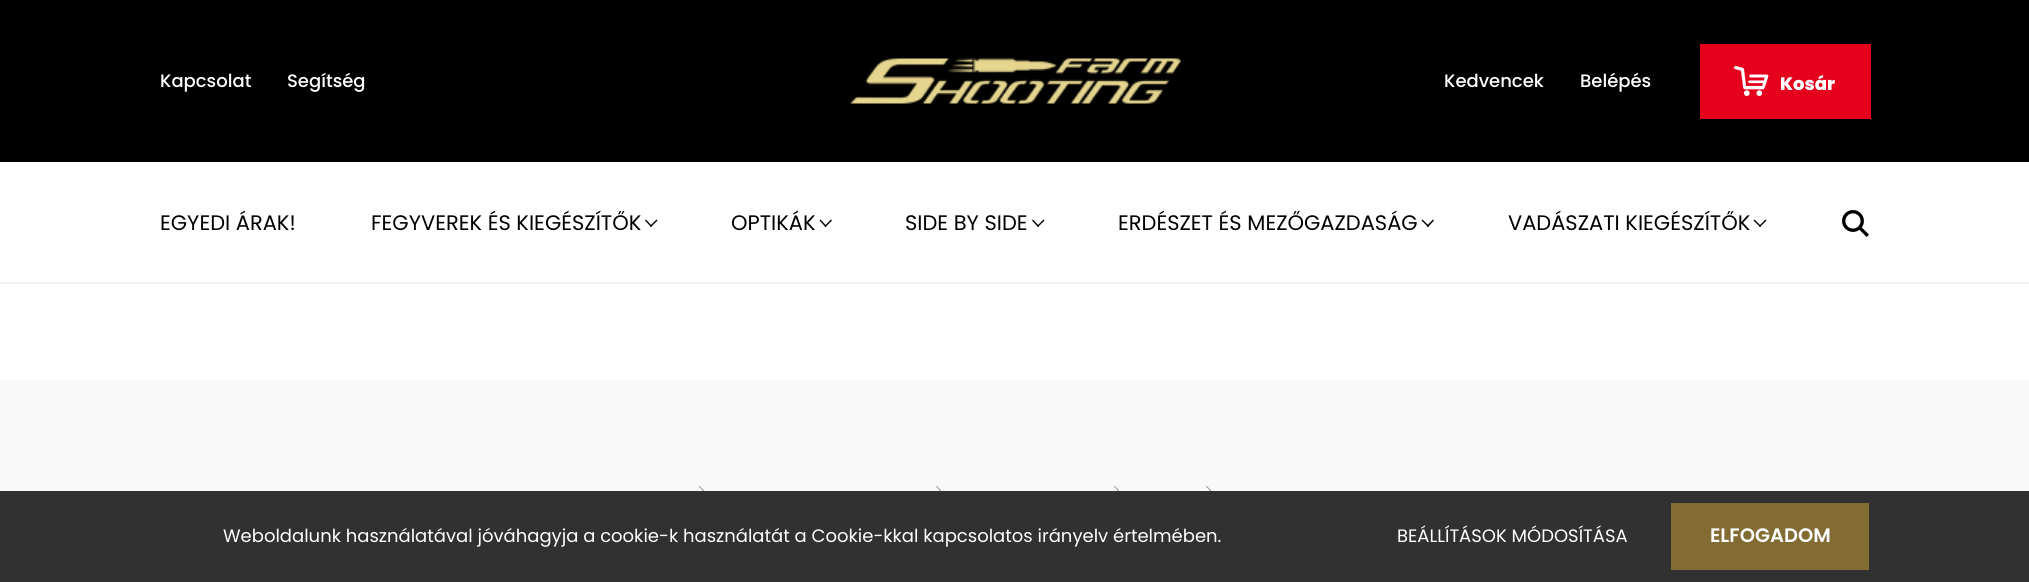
#include <cairo.h>
#include <math.h>
#include <stddef.h>


static void picture(cairo_t *cr, const char *path, double x, double y, double w, double h) {
    cairo_surface_t *image = cairo_image_surface_create_from_png(path);
    cairo_save(cr);
    cairo_set_source_surface(cr, image, x, y);
    cairo_rectangle(cr, x, y, w, h);
    cairo_fill(cr);
    cairo_restore(cr);
    cairo_surface_destroy(image);
}

int main(void) {
    cairo_surface_t *surface = cairo_image_surface_create(CAIRO_FORMAT_RGB24, 2029, 582);
    cairo_t *cr = cairo_create(surface);
    cairo_font_options_t *options = cairo_font_options_create();
    cairo_font_options_set_hint_metrics(options, CAIRO_HINT_METRICS_OFF);
    cairo_font_options_set_hint_style(options, CAIRO_HINT_STYLE_NONE);
    cairo_set_font_options(cr, options);
    cairo_set_miter_limit(cr, 4);
    cairo_set_source_rgb(cr, 1, 1, 1);
    cairo_paint(cr);
    cairo_set_source_rgb(cr, 0, 0, 0);
    cairo_rectangle(cr, 0, 0, 2029, 162);
    cairo_fill(cr);
    cairo_select_font_face(cr, "Poppins Medium", CAIRO_FONT_SLANT_NORMAL, CAIRO_FONT_WEIGHT_NORMAL);
    cairo_set_font_size(cr, 18);
    cairo_set_source_rgb(cr, 1, 1, 1);
    cairo_move_to(cr, 160, 87);
    cairo_show_text(cr, "Kapcsolat");
    cairo_move_to(cr, 287, 87);
    cairo_show_text(cr, "Segítség");
    picture(cr, "img1.png", 850, 58, 331, 46);
    cairo_move_to(cr, 1444, 87);
    cairo_show_text(cr, "Kedvencek");
    cairo_move_to(cr, 1580, 87);
    cairo_show_text(cr, "Belépés");
    cairo_set_source_rgb(cr, 0.898, 0, 0.11);
    cairo_rectangle(cr, 1700, 44, 171, 75);
    cairo_fill(cr);
    picture(cr, "img2.png", 1734, 66, 35, 30);
    cairo_select_font_face(cr, "Poppins ExtraBold", CAIRO_FONT_SLANT_NORMAL, CAIRO_FONT_WEIGHT_NORMAL);
    cairo_set_source_rgb(cr, 1, 1, 1);
    cairo_move_to(cr, 1780, 90);
    cairo_show_text(cr, "Kosár");
    cairo_set_source_rgb(cr, 0.937, 0.941, 0.945);
    cairo_rectangle(cr, 0, 282, 2029, 2);
    cairo_fill(cr);
    cairo_select_font_face(cr, "Poppins", CAIRO_FONT_SLANT_NORMAL, CAIRO_FONT_WEIGHT_NORMAL);
    cairo_set_font_size(cr, 21);
    cairo_set_source_rgb(cr, 0, 0, 0);
    cairo_move_to(cr, 160, 230);
    cairo_show_text(cr, "EGYEDI ÁRAK!");
    cairo_move_to(cr, 371, 230);
    cairo_show_text(cr, "FEGYVEREK ÉS KIEGÉSZÍTŐK");
    cairo_new_path(cr);
    cairo_move_to(cr, 656.5, 219.5);
    cairo_line_to(cr, 657.5, 220.5);
    cairo_line_to(cr, 651, 227);
    cairo_line_to(cr, 650, 226);
    cairo_close_path(cr);
    cairo_fill(cr);
    cairo_new_path(cr);
    cairo_move_to(cr, 646, 219.5);
    cairo_line_to(cr, 652, 226);
    cairo_line_to(cr, 651, 227);
    cairo_line_to(cr, 645, 220.5);
    cairo_close_path(cr);
    cairo_fill(cr);
    cairo_move_to(cr, 731, 230);
    cairo_show_text(cr, "OPTIKÁK");
    cairo_new_path(cr);
    cairo_move_to(cr, 831, 219.5);
    cairo_line_to(cr, 832, 220.5);
    cairo_line_to(cr, 825.5, 227);
    cairo_line_to(cr, 824.5, 226);
    cairo_close_path(cr);
    cairo_fill(cr);
    cairo_new_path(cr);
    cairo_move_to(cr, 820.5, 219.5);
    cairo_line_to(cr, 826.5, 226);
    cairo_line_to(cr, 825.5, 227);
    cairo_line_to(cr, 819.5, 220.5);
    cairo_close_path(cr);
    cairo_fill(cr);
    cairo_move_to(cr, 905, 230);
    cairo_show_text(cr, "SIDE BY SIDE");
    cairo_new_path(cr);
    cairo_move_to(cr, 1043.5, 219.5);
    cairo_line_to(cr, 1044.5, 220.5);
    cairo_line_to(cr, 1038, 227);
    cairo_line_to(cr, 1037, 226);
    cairo_close_path(cr);
    cairo_fill(cr);
    cairo_new_path(cr);
    cairo_move_to(cr, 1033, 219.5);
    cairo_line_to(cr, 1039, 226);
    cairo_line_to(cr, 1038, 227);
    cairo_line_to(cr, 1032, 220.5);
    cairo_close_path(cr);
    cairo_fill(cr);
    cairo_move_to(cr, 1118, 230);
    cairo_show_text(cr, "ERDÉSZET ÉS MEZŐGAZDASÁG");
    cairo_new_path(cr);
    cairo_move_to(cr, 1433, 219.5);
    cairo_line_to(cr, 1434, 220.5);
    cairo_line_to(cr, 1428, 227);
    cairo_line_to(cr, 1426.5, 226);
    cairo_close_path(cr);
    cairo_fill(cr);
    cairo_new_path(cr);
    cairo_move_to(cr, 1422.5, 219.5);
    cairo_line_to(cr, 1429, 226);
    cairo_line_to(cr, 1428, 227);
    cairo_line_to(cr, 1421.5, 220.5);
    cairo_close_path(cr);
    cairo_fill(cr);
    cairo_move_to(cr, 1508, 230);
    cairo_show_text(cr, "VADÁSZATI KIEGÉSZÍTŐK");
    cairo_new_path(cr);
    cairo_move_to(cr, 1765.5, 219.5);
    cairo_line_to(cr, 1766.5, 220.5);
    cairo_line_to(cr, 1760, 227);
    cairo_line_to(cr, 1759, 226);
    cairo_close_path(cr);
    cairo_fill(cr);
    cairo_new_path(cr);
    cairo_move_to(cr, 1754.5, 219.5);
    cairo_line_to(cr, 1761, 226);
    cairo_line_to(cr, 1760, 227);
    cairo_line_to(cr, 1753.5, 220.5);
    cairo_close_path(cr);
    cairo_fill(cr);
    picture(cr, "img3.png", 1842, 210, 27, 27);
    cairo_set_source_rgb(cr, 0.973, 0.976, 0.98);
    cairo_rectangle(cr, 0, 380, 2029, 111);
    cairo_fill(cr);
    picture(cr, "img4.png", 698, 486, 6, 5);
    picture(cr, "img5.png", 936, 486, 5, 5);
    picture(cr, "img6.png", 1114, 486, 5, 5);
    picture(cr, "img7.png", 1206, 486, 5, 5);
    cairo_set_source_rgb(cr, 0.192, 0.192, 0.192);
    cairo_rectangle(cr, 0, 491, 2029, 91);
    cairo_fill(cr);
    cairo_set_font_size(cr, 18);
    cairo_set_source_rgb(cr, 1, 1, 1);
    cairo_move_to(cr, 223, 542);
    cairo_show_text(cr, "Weboldalunk használatával jóváhagyja a cookie-k használatát a Cookie-kkal kapcsolatos irányelv értelmében.");
    cairo_move_to(cr, 1397, 542);
    cairo_show_text(cr, "BEÁLLÍTÁSOK MÓDOSÍTÁSA");
    cairo_set_source_rgb(cr, 0.51, 0.424, 0.204);
    cairo_rectangle(cr, 1671, 503, 198, 67);
    cairo_fill(cr);
    cairo_select_font_face(cr, "Poppins SemiBold", CAIRO_FONT_SLANT_NORMAL, CAIRO_FONT_WEIGHT_NORMAL);
    cairo_set_font_size(cr, 19.5);
    cairo_set_source_rgb(cr, 1, 1, 1);
    cairo_move_to(cr, 1710, 542);
    cairo_show_text(cr, "ELFOGADOM");
    cairo_surface_write_to_png(surface, "page.png");
    cairo_font_options_destroy(options);
    cairo_destroy(cr);
    cairo_surface_destroy(surface);
    return 0;
}
